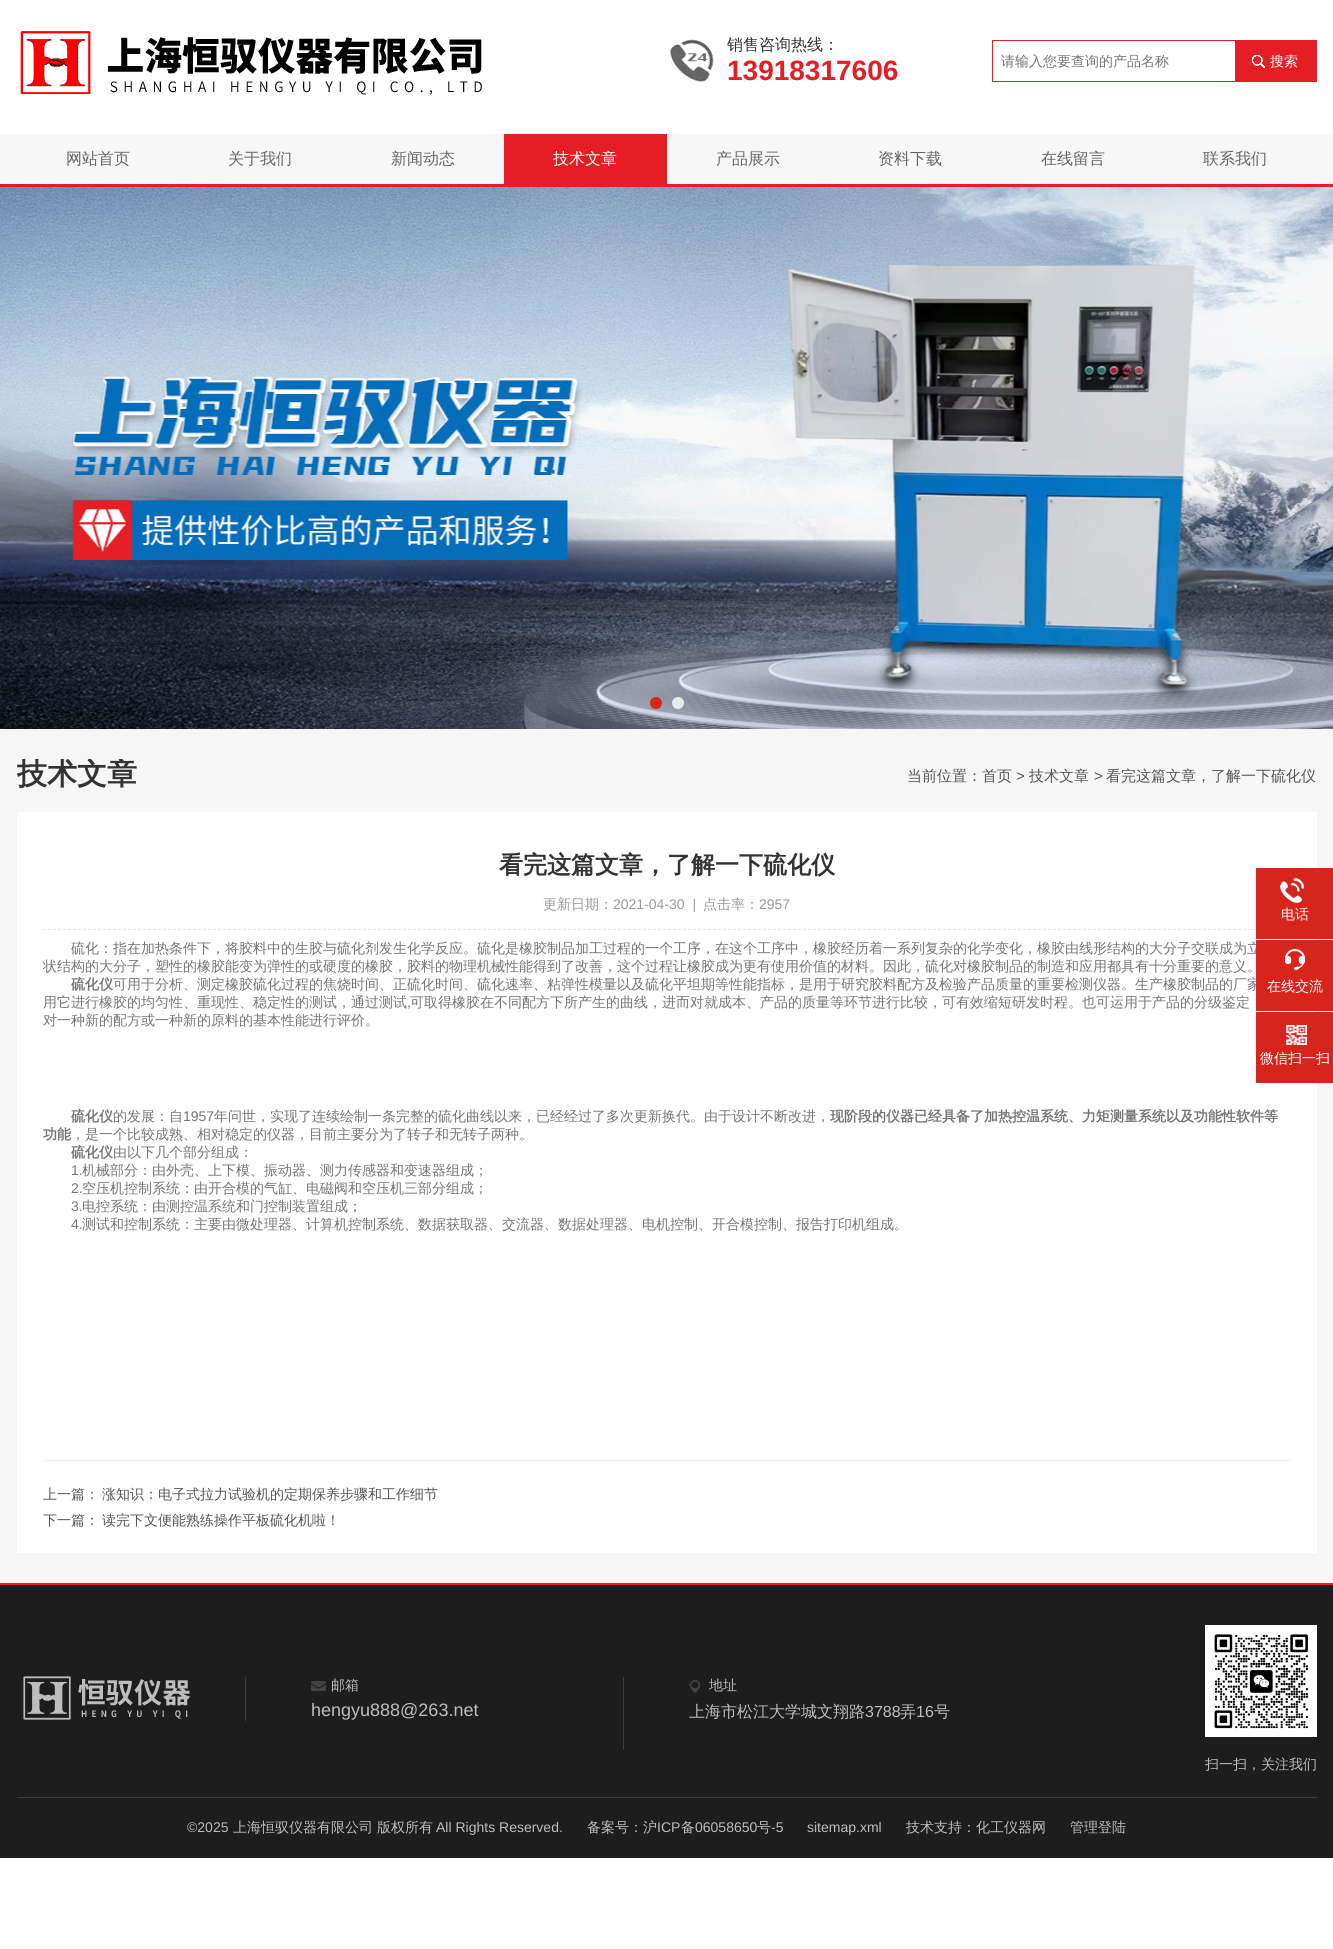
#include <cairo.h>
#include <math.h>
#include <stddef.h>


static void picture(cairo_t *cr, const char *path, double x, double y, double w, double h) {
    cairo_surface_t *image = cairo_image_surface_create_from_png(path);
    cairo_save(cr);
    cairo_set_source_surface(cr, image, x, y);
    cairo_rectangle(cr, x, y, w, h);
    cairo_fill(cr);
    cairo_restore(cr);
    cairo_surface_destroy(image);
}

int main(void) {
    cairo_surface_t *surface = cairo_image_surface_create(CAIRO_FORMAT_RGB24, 1333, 1949);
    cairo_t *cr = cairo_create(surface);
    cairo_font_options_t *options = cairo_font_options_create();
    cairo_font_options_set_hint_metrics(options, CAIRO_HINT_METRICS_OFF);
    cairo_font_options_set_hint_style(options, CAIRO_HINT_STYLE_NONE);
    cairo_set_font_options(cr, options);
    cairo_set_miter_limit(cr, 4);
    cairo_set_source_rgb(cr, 1, 1, 1);
    cairo_paint(cr);
    picture(cr, "img1.png", 20, 31, 462, 64);
    picture(cr, "img2.png", 670, 39, 44, 43);
    cairo_select_font_face(cr, "WenQuanYi Zen Hei Medium", CAIRO_FONT_SLANT_NORMAL, CAIRO_FONT_WEIGHT_NORMAL);
    cairo_set_font_size(cr, 16);
    cairo_set_source_rgb(cr, 0.2, 0.2, 0.2);
    cairo_move_to(cr, 727, 50);
    cairo_show_text(cr, "销售咨询热线：");
    cairo_select_font_face(cr, "Liberation Sans", CAIRO_FONT_SLANT_NORMAL, CAIRO_FONT_WEIGHT_BOLD);
    cairo_set_font_size(cr, 28);
    cairo_set_source_rgb(cr, 0.898, 0.118, 0.145);
    cairo_move_to(cr, 727, 80);
    cairo_show_text(cr, "13918317606");
    cairo_rectangle(cr, 992.5, 40.5, 324, 41);
    cairo_set_line_width(cr, 1);
    cairo_stroke(cr);
    cairo_select_font_face(cr, "WenQuanYi Zen Hei Medium", CAIRO_FONT_SLANT_NORMAL, CAIRO_FONT_WEIGHT_NORMAL);
    cairo_set_font_size(cr, 14);
    cairo_set_source_rgb(cr, 0.459, 0.459, 0.459);
    cairo_move_to(cr, 1001, 66);
    cairo_show_text(cr, "请输入您要查询的产品名称");
    cairo_set_source_rgb(cr, 0.898, 0.118, 0.145);
    cairo_rectangle(cr, 1235, 41, 81, 40);
    cairo_fill(cr);
    picture(cr, "img3.png", 1252, 55, 13, 13);
    cairo_set_source_rgb(cr, 1, 1, 1);
    cairo_move_to(cr, 1270, 66);
    cairo_show_text(cr, "搜索");
    cairo_set_source_rgb(cr, 0.965, 0.965, 0.965);
    cairo_rectangle(cr, 0, 134, 1333, 50);
    cairo_fill(cr);
    cairo_set_source_rgb(cr, 0.898, 0.118, 0.145);
    cairo_rectangle(cr, 0, 184, 1333, 3);
    cairo_fill(cr);
    cairo_set_font_size(cr, 16);
    cairo_set_source_rgb(cr, 0.4, 0.4, 0.4);
    cairo_move_to(cr, 66, 164);
    cairo_show_text(cr, "网站首页");
    cairo_move_to(cr, 228, 164);
    cairo_show_text(cr, "关于我们");
    cairo_move_to(cr, 391, 164);
    cairo_show_text(cr, "新闻动态");
    cairo_set_source_rgb(cr, 0.898, 0.118, 0.145);
    cairo_rectangle(cr, 504, 134, 163, 50);
    cairo_fill(cr);
    cairo_set_source_rgb(cr, 1, 1, 1);
    cairo_move_to(cr, 553, 164);
    cairo_show_text(cr, "技术文章");
    cairo_set_source_rgb(cr, 0.4, 0.4, 0.4);
    cairo_move_to(cr, 716, 164);
    cairo_show_text(cr, "产品展示");
    cairo_move_to(cr, 878, 164);
    cairo_show_text(cr, "资料下载");
    cairo_move_to(cr, 1041, 164);
    cairo_show_text(cr, "在线留言");
    cairo_move_to(cr, 1203, 164);
    cairo_show_text(cr, "联系我们");
    picture(cr, "img4.png", 0, 187, 1333, 542);
    cairo_set_source_rgb(cr, 0.855, 0.145, 0.11);
    cairo_arc(cr, 656, 703, 6, 0, 2 * M_PI);
    cairo_fill(cr);
    cairo_set_source_rgba(cr, 1, 1, 1, 0.8);
    cairo_arc(cr, 678, 703, 6, 0, 2 * M_PI);
    cairo_fill(cr);
    cairo_set_source_rgb(cr, 0.961, 0.961, 0.961);
    cairo_rectangle(cr, 0, 729, 1333, 854);
    cairo_fill(cr);
    cairo_save(cr);
    cairo_rectangle(cr, 17, 759, 1300, 794);
    cairo_clip(cr);
    cairo_select_font_face(cr, "WenQuanYi Zen Hei", CAIRO_FONT_SLANT_NORMAL, CAIRO_FONT_WEIGHT_BOLD);
    cairo_set_font_size(cr, 30);
    cairo_set_source_rgb(cr, 0.2, 0.2, 0.2);
    cairo_move_to(cr, 17, 784);
    cairo_show_text(cr, "技术文章");
    cairo_restore(cr);
    cairo_set_font_size(cr, 15);
    cairo_set_source_rgb(cr, 0.333, 0.333, 0.333);
    cairo_move_to(cr, 907, 781);
    cairo_show_text(cr, "当前位置：首页");
    cairo_select_font_face(cr, "Liberation Sans", CAIRO_FONT_SLANT_NORMAL, CAIRO_FONT_WEIGHT_NORMAL);
    cairo_move_to(cr, 1016, 781);
    cairo_show_text(cr, ">");
    cairo_select_font_face(cr, "WenQuanYi Zen Hei Medium", CAIRO_FONT_SLANT_NORMAL, CAIRO_FONT_WEIGHT_NORMAL);
    cairo_move_to(cr, 1029, 781);
    cairo_show_text(cr, "技术文章");
    cairo_select_font_face(cr, "Liberation Sans", CAIRO_FONT_SLANT_NORMAL, CAIRO_FONT_WEIGHT_NORMAL);
    cairo_move_to(cr, 1094, 781);
    cairo_show_text(cr, ">");
    cairo_select_font_face(cr, "WenQuanYi Zen Hei Medium", CAIRO_FONT_SLANT_NORMAL, CAIRO_FONT_WEIGHT_NORMAL);
    cairo_move_to(cr, 1106, 781);
    cairo_show_text(cr, "看完这篇文章，了解一下硫化仪");
    cairo_set_source_rgb(cr, 1, 1, 1);
    cairo_rectangle(cr, 17, 812, 1300, 741);
    cairo_fill(cr);
    cairo_select_font_face(cr, "WenQuanYi Zen Hei", CAIRO_FONT_SLANT_NORMAL, CAIRO_FONT_WEIGHT_BOLD);
    cairo_set_font_size(cr, 24);
    cairo_set_source_rgb(cr, 0.2, 0.2, 0.2);
    cairo_move_to(cr, 499, 873);
    cairo_show_text(cr, "看完这篇文章，了解一下硫化仪");
    cairo_new_path(cr);
    cairo_move_to(cr, 43, 929.5);
    cairo_line_to(cr, 1291, 929.5);
    cairo_set_source_rgb(cr, 0.902, 0.902, 0.902);
    cairo_set_dash(cr, (double[]){3, 2}, 2, 0);
    cairo_stroke(cr);
    cairo_select_font_face(cr, "WenQuanYi Zen Hei Medium", CAIRO_FONT_SLANT_NORMAL, CAIRO_FONT_WEIGHT_NORMAL);
    cairo_set_font_size(cr, 14);
    cairo_set_source_rgb(cr, 0.6, 0.6, 0.6);
    cairo_move_to(cr, 543, 909);
    cairo_show_text(cr, "更新日期：");
    cairo_select_font_face(cr, "Liberation Sans", CAIRO_FONT_SLANT_NORMAL, CAIRO_FONT_WEIGHT_NORMAL);
    cairo_move_to(cr, 613, 909);
    cairo_show_text(cr, "2021-04-30  |");
    cairo_select_font_face(cr, "WenQuanYi Zen Hei Medium", CAIRO_FONT_SLANT_NORMAL, CAIRO_FONT_WEIGHT_NORMAL);
    cairo_move_to(cr, 703, 909);
    cairo_show_text(cr, "点击率：");
    cairo_select_font_face(cr, "Liberation Sans", CAIRO_FONT_SLANT_NORMAL, CAIRO_FONT_WEIGHT_NORMAL);
    cairo_move_to(cr, 759, 909);
    cairo_show_text(cr, "2957");
    cairo_select_font_face(cr, "WenQuanYi Zen Hei Medium", CAIRO_FONT_SLANT_NORMAL, CAIRO_FONT_WEIGHT_NORMAL);
    cairo_set_source_rgb(cr, 0.459, 0.459, 0.459);
    cairo_move_to(cr, 71, 953);
    cairo_show_text(cr, "硫化：指在加热条件下，将胶料中的生胶与硫化剂发生化学反应。硫化是橡胶制品加工过程的一个工序，在这个工序中，橡胶经历着一系列复杂的化学变化，橡胶由线形结构的大分子交联成为立");
    cairo_move_to(cr, 43, 971);
    cairo_show_text(cr, "状结构的大分子，塑性的橡胶能变为弹性的或硬度的橡胶，胶料的物理机械性能得到了改善，这个过程让橡胶成为更有使用价值的材料。因此，硫化对橡胶制品的制造和应用都具有十分重要的意义。");
    cairo_select_font_face(cr, "WenQuanYi Zen Hei", CAIRO_FONT_SLANT_NORMAL, CAIRO_FONT_WEIGHT_BOLD);
    cairo_move_to(cr, 71, 989);
    cairo_show_text(cr, "硫化仪");
    cairo_select_font_face(cr, "WenQuanYi Zen Hei Medium", CAIRO_FONT_SLANT_NORMAL, CAIRO_FONT_WEIGHT_NORMAL);
    cairo_move_to(cr, 113, 989);
    cairo_show_text(cr, "可用于分析、测定橡胶硫化过程的焦烧时间、正硫化时间、硫化速率、粘弹性模量以及硫化平坦期等性能指标，是用于研究胶料配方及检验产品质量的重要检测仪器。生产橡胶制品的厂家");
    cairo_move_to(cr, 43, 1007);
    cairo_show_text(cr, "用它进行橡胶的均匀性、重现性、稳定性的测试，通过测试");
    cairo_select_font_face(cr, "Liberation Sans", CAIRO_FONT_SLANT_NORMAL, CAIRO_FONT_WEIGHT_NORMAL);
    cairo_move_to(cr, 407, 1007);
    cairo_show_text(cr, ",");
    cairo_select_font_face(cr, "WenQuanYi Zen Hei Medium", CAIRO_FONT_SLANT_NORMAL, CAIRO_FONT_WEIGHT_NORMAL);
    cairo_move_to(cr, 410, 1007);
    cairo_show_text(cr, "可取得橡胶在不同配方下所产生的曲线，进而对就成本、产品的质量等环节进行比较，可有效缩短研发时程。也可运用于产品的分级鉴定");
    cairo_move_to(cr, 43, 1025);
    cairo_show_text(cr, "对一种新的配方或一种新的原料的基本性能进行评价。");
    cairo_select_font_face(cr, "WenQuanYi Zen Hei", CAIRO_FONT_SLANT_NORMAL, CAIRO_FONT_WEIGHT_BOLD);
    cairo_move_to(cr, 71, 1121);
    cairo_show_text(cr, "硫化仪");
    cairo_select_font_face(cr, "WenQuanYi Zen Hei Medium", CAIRO_FONT_SLANT_NORMAL, CAIRO_FONT_WEIGHT_NORMAL);
    cairo_move_to(cr, 113, 1121);
    cairo_show_text(cr, "的发展：自");
    cairo_select_font_face(cr, "Liberation Sans", CAIRO_FONT_SLANT_NORMAL, CAIRO_FONT_WEIGHT_NORMAL);
    cairo_move_to(cr, 183, 1121);
    cairo_show_text(cr, "1957");
    cairo_select_font_face(cr, "WenQuanYi Zen Hei Medium", CAIRO_FONT_SLANT_NORMAL, CAIRO_FONT_WEIGHT_NORMAL);
    cairo_move_to(cr, 214, 1121);
    cairo_show_text(cr, "年问世，实现了连续绘制一条完整的硫化曲线以来，已经经过了多次更新换代。由于设计不断改进，");
    cairo_select_font_face(cr, "WenQuanYi Zen Hei", CAIRO_FONT_SLANT_NORMAL, CAIRO_FONT_WEIGHT_BOLD);
    cairo_move_to(cr, 830, 1121);
    cairo_show_text(cr, "现阶段的仪器已经具备了加热控温系统、力矩测量系统以及功能性软件等");
    cairo_move_to(cr, 43, 1139);
    cairo_show_text(cr, "功能");
    cairo_select_font_face(cr, "WenQuanYi Zen Hei Medium", CAIRO_FONT_SLANT_NORMAL, CAIRO_FONT_WEIGHT_NORMAL);
    cairo_move_to(cr, 71, 1139);
    cairo_show_text(cr, "，是一个比较成熟、相对稳定的仪器，目前主要分为了转子和无转子两种。");
    cairo_select_font_face(cr, "WenQuanYi Zen Hei", CAIRO_FONT_SLANT_NORMAL, CAIRO_FONT_WEIGHT_BOLD);
    cairo_move_to(cr, 71, 1157);
    cairo_show_text(cr, "硫化仪");
    cairo_select_font_face(cr, "WenQuanYi Zen Hei Medium", CAIRO_FONT_SLANT_NORMAL, CAIRO_FONT_WEIGHT_NORMAL);
    cairo_move_to(cr, 113, 1157);
    cairo_show_text(cr, "由以下几个部分组成：");
    cairo_select_font_face(cr, "Liberation Sans", CAIRO_FONT_SLANT_NORMAL, CAIRO_FONT_WEIGHT_NORMAL);
    cairo_move_to(cr, 71, 1175);
    cairo_show_text(cr, "1.");
    cairo_select_font_face(cr, "WenQuanYi Zen Hei Medium", CAIRO_FONT_SLANT_NORMAL, CAIRO_FONT_WEIGHT_NORMAL);
    cairo_move_to(cr, 82, 1175);
    cairo_show_text(cr, "机械部分：由外壳、上下模、振动器、测力传感器和变速器组成；");
    cairo_select_font_face(cr, "Liberation Sans", CAIRO_FONT_SLANT_NORMAL, CAIRO_FONT_WEIGHT_NORMAL);
    cairo_move_to(cr, 71, 1193);
    cairo_show_text(cr, "2.");
    cairo_select_font_face(cr, "WenQuanYi Zen Hei Medium", CAIRO_FONT_SLANT_NORMAL, CAIRO_FONT_WEIGHT_NORMAL);
    cairo_move_to(cr, 82, 1193);
    cairo_show_text(cr, "空压机控制系统：由开合模的气缸、电磁阀和空压机三部分组成；");
    cairo_select_font_face(cr, "Liberation Sans", CAIRO_FONT_SLANT_NORMAL, CAIRO_FONT_WEIGHT_NORMAL);
    cairo_move_to(cr, 71, 1211);
    cairo_show_text(cr, "3.");
    cairo_select_font_face(cr, "WenQuanYi Zen Hei Medium", CAIRO_FONT_SLANT_NORMAL, CAIRO_FONT_WEIGHT_NORMAL);
    cairo_move_to(cr, 82, 1211);
    cairo_show_text(cr, "电控系统：由测控温系统和门控制装置组成；");
    cairo_select_font_face(cr, "Liberation Sans", CAIRO_FONT_SLANT_NORMAL, CAIRO_FONT_WEIGHT_NORMAL);
    cairo_move_to(cr, 71, 1229);
    cairo_show_text(cr, "4.");
    cairo_select_font_face(cr, "WenQuanYi Zen Hei Medium", CAIRO_FONT_SLANT_NORMAL, CAIRO_FONT_WEIGHT_NORMAL);
    cairo_move_to(cr, 82, 1229);
    cairo_show_text(cr, "测试和控制系统：主要由微处理器、计算机控制系统、数据获取器、交流器、数据处理器、电机控制、开合模控制、报告打印机组成。");
    cairo_set_source_rgb(cr, 0.945, 0.945, 0.945);
    cairo_rectangle(cr, 43, 1460, 1248, 1);
    cairo_fill(cr);
    cairo_set_source_rgb(cr, 0.333, 0.333, 0.333);
    cairo_move_to(cr, 43, 1499);
    cairo_show_text(cr, "上一篇：");
    cairo_move_to(cr, 102, 1499);
    cairo_show_text(cr, "涨知识：电子式拉力试验机的定期保养步骤和工作细节");
    cairo_move_to(cr, 43, 1525);
    cairo_show_text(cr, "下一篇：");
    cairo_move_to(cr, 102, 1525);
    cairo_show_text(cr, "读完下文便能熟练操作平板硫化机啦！");
    cairo_set_source_rgb(cr, 0.843, 0.141, 0.114);
    cairo_rectangle(cr, 1256, 868, 77, 71);
    cairo_fill(cr);
    picture(cr, "img5.png", 1280, 878, 24, 25);
    cairo_set_source_rgb(cr, 1, 1, 1);
    cairo_move_to(cr, 1281, 919);
    cairo_show_text(cr, "电话");
    cairo_set_source_rgb(cr, 0.843, 0.141, 0.114);
    cairo_rectangle(cr, 1256, 940, 77, 71);
    cairo_fill(cr);
    picture(cr, "img6.png", 1285, 949, 20, 21);
    cairo_set_source_rgb(cr, 1, 1, 1);
    cairo_move_to(cr, 1267, 991);
    cairo_show_text(cr, "在线交流");
    cairo_set_source_rgb(cr, 0.843, 0.141, 0.114);
    cairo_rectangle(cr, 1256, 1012, 77, 71);
    cairo_fill(cr);
    picture(cr, "img7.png", 1286, 1025, 21, 20);
    cairo_set_source_rgb(cr, 1, 1, 1);
    cairo_move_to(cr, 1260, 1063);
    cairo_show_text(cr, "微信扫一扫");
    cairo_set_source_rgb(cr, 0.114, 0.114, 0.114);
    cairo_rectangle(cr, 0, 1585, 1333, 273);
    cairo_fill(cr);
    cairo_set_source_rgb(cr, 0.898, 0.118, 0.145);
    cairo_rectangle(cr, 0, 1583, 1333, 2);
    cairo_fill(cr);
    picture(cr, "img8.png", 23, 1676, 168, 44);
    cairo_set_source_rgb(cr, 0.243, 0.243, 0.243);
    cairo_rectangle(cr, 245, 1677, 1, 44);
    cairo_fill(cr);
    picture(cr, "img9.png", 311, 1681, 15, 10);
    cairo_set_source_rgb(cr, 0.741, 0.741, 0.741);
    cairo_move_to(cr, 331, 1690);
    cairo_show_text(cr, "邮箱");
    cairo_select_font_face(cr, "Liberation Sans", CAIRO_FONT_SLANT_NORMAL, CAIRO_FONT_WEIGHT_NORMAL);
    cairo_set_font_size(cr, 18);
    cairo_move_to(cr, 311, 1716);
    cairo_show_text(cr, "hengyu888@263.net");
    cairo_set_source_rgb(cr, 0.243, 0.243, 0.243);
    cairo_rectangle(cr, 623, 1677, 1, 73);
    cairo_fill(cr);
    picture(cr, "img10.png", 689, 1680, 11, 13);
    cairo_select_font_face(cr, "WenQuanYi Zen Hei Medium", CAIRO_FONT_SLANT_NORMAL, CAIRO_FONT_WEIGHT_NORMAL);
    cairo_set_font_size(cr, 14);
    cairo_set_source_rgb(cr, 0.741, 0.741, 0.741);
    cairo_move_to(cr, 709, 1690);
    cairo_show_text(cr, "地址");
    cairo_set_font_size(cr, 16);
    cairo_move_to(cr, 689, 1717);
    cairo_show_text(cr, "上海市松江大学城文翔路");
    cairo_select_font_face(cr, "Liberation Sans", CAIRO_FONT_SLANT_NORMAL, CAIRO_FONT_WEIGHT_NORMAL);
    cairo_move_to(cr, 865, 1717);
    cairo_show_text(cr, "3788");
    cairo_select_font_face(cr, "WenQuanYi Zen Hei Medium", CAIRO_FONT_SLANT_NORMAL, CAIRO_FONT_WEIGHT_NORMAL);
    cairo_move_to(cr, 900, 1717);
    cairo_show_text(cr, "弄");
    cairo_select_font_face(cr, "Liberation Sans", CAIRO_FONT_SLANT_NORMAL, CAIRO_FONT_WEIGHT_NORMAL);
    cairo_move_to(cr, 916, 1717);
    cairo_show_text(cr, "16");
    cairo_select_font_face(cr, "WenQuanYi Zen Hei Medium", CAIRO_FONT_SLANT_NORMAL, CAIRO_FONT_WEIGHT_NORMAL);
    cairo_move_to(cr, 934, 1717);
    cairo_show_text(cr, "号");
    cairo_set_source_rgb(cr, 1, 1, 1);
    cairo_rectangle(cr, 1205, 1625, 112, 112);
    cairo_fill(cr);
    picture(cr, "img11.png", 1214, 1634, 95, 95);
    cairo_save(cr);
    cairo_rectangle(cr, 1205, 1625, 112, 152);
    cairo_clip(cr);
    cairo_set_font_size(cr, 14);
    cairo_set_source_rgb(cr, 0.741, 0.741, 0.741);
    cairo_move_to(cr, 1205, 1769);
    cairo_show_text(cr, "扫一扫，关注我们");
    cairo_restore(cr);
    cairo_set_source_rgb(cr, 0.243, 0.243, 0.243);
    cairo_rectangle(cr, 17, 1797, 1300, 1);
    cairo_fill(cr);
    cairo_select_font_face(cr, "Liberation Sans", CAIRO_FONT_SLANT_NORMAL, CAIRO_FONT_WEIGHT_NORMAL);
    cairo_set_font_size(cr, 14);
    cairo_set_source_rgb(cr, 0.741, 0.741, 0.741);
    cairo_move_to(cr, 187, 1832);
    cairo_show_text(cr, "©2025");
    cairo_select_font_face(cr, "WenQuanYi Zen Hei Medium", CAIRO_FONT_SLANT_NORMAL, CAIRO_FONT_WEIGHT_NORMAL);
    cairo_move_to(cr, 233, 1832);
    cairo_show_text(cr, "上海恒驭仪器有限公司");
    cairo_move_to(cr, 377, 1832);
    cairo_show_text(cr, "版权所有");
    cairo_select_font_face(cr, "Liberation Sans", CAIRO_FONT_SLANT_NORMAL, CAIRO_FONT_WEIGHT_NORMAL);
    cairo_move_to(cr, 436, 1832);
    cairo_show_text(cr, "All Rights Reserved.");
    cairo_select_font_face(cr, "WenQuanYi Zen Hei Medium", CAIRO_FONT_SLANT_NORMAL, CAIRO_FONT_WEIGHT_NORMAL);
    cairo_move_to(cr, 587, 1832);
    cairo_show_text(cr, "备案号：沪");
    cairo_select_font_face(cr, "Liberation Sans", CAIRO_FONT_SLANT_NORMAL, CAIRO_FONT_WEIGHT_NORMAL);
    cairo_move_to(cr, 657, 1832);
    cairo_show_text(cr, "ICP");
    cairo_select_font_face(cr, "WenQuanYi Zen Hei Medium", CAIRO_FONT_SLANT_NORMAL, CAIRO_FONT_WEIGHT_NORMAL);
    cairo_move_to(cr, 681, 1832);
    cairo_show_text(cr, "备");
    cairo_select_font_face(cr, "Liberation Sans", CAIRO_FONT_SLANT_NORMAL, CAIRO_FONT_WEIGHT_NORMAL);
    cairo_move_to(cr, 695, 1832);
    cairo_show_text(cr, "06058650");
    cairo_select_font_face(cr, "WenQuanYi Zen Hei Medium", CAIRO_FONT_SLANT_NORMAL, CAIRO_FONT_WEIGHT_NORMAL);
    cairo_move_to(cr, 757, 1832);
    cairo_show_text(cr, "号");
    cairo_select_font_face(cr, "Liberation Sans", CAIRO_FONT_SLANT_NORMAL, CAIRO_FONT_WEIGHT_NORMAL);
    cairo_move_to(cr, 771, 1832);
    cairo_show_text(cr, "-5");
    cairo_move_to(cr, 807, 1832);
    cairo_show_text(cr, "sitemap.xml");
    cairo_select_font_face(cr, "WenQuanYi Zen Hei Medium", CAIRO_FONT_SLANT_NORMAL, CAIRO_FONT_WEIGHT_NORMAL);
    cairo_move_to(cr, 906, 1832);
    cairo_show_text(cr, "技术支持：化工仪器网");
    cairo_move_to(cr, 1070, 1832);
    cairo_show_text(cr, "管理登陆");
    cairo_surface_write_to_png(surface, "page.png");
    cairo_font_options_destroy(options);
    cairo_destroy(cr);
    cairo_surface_destroy(surface);
    return 0;
}
